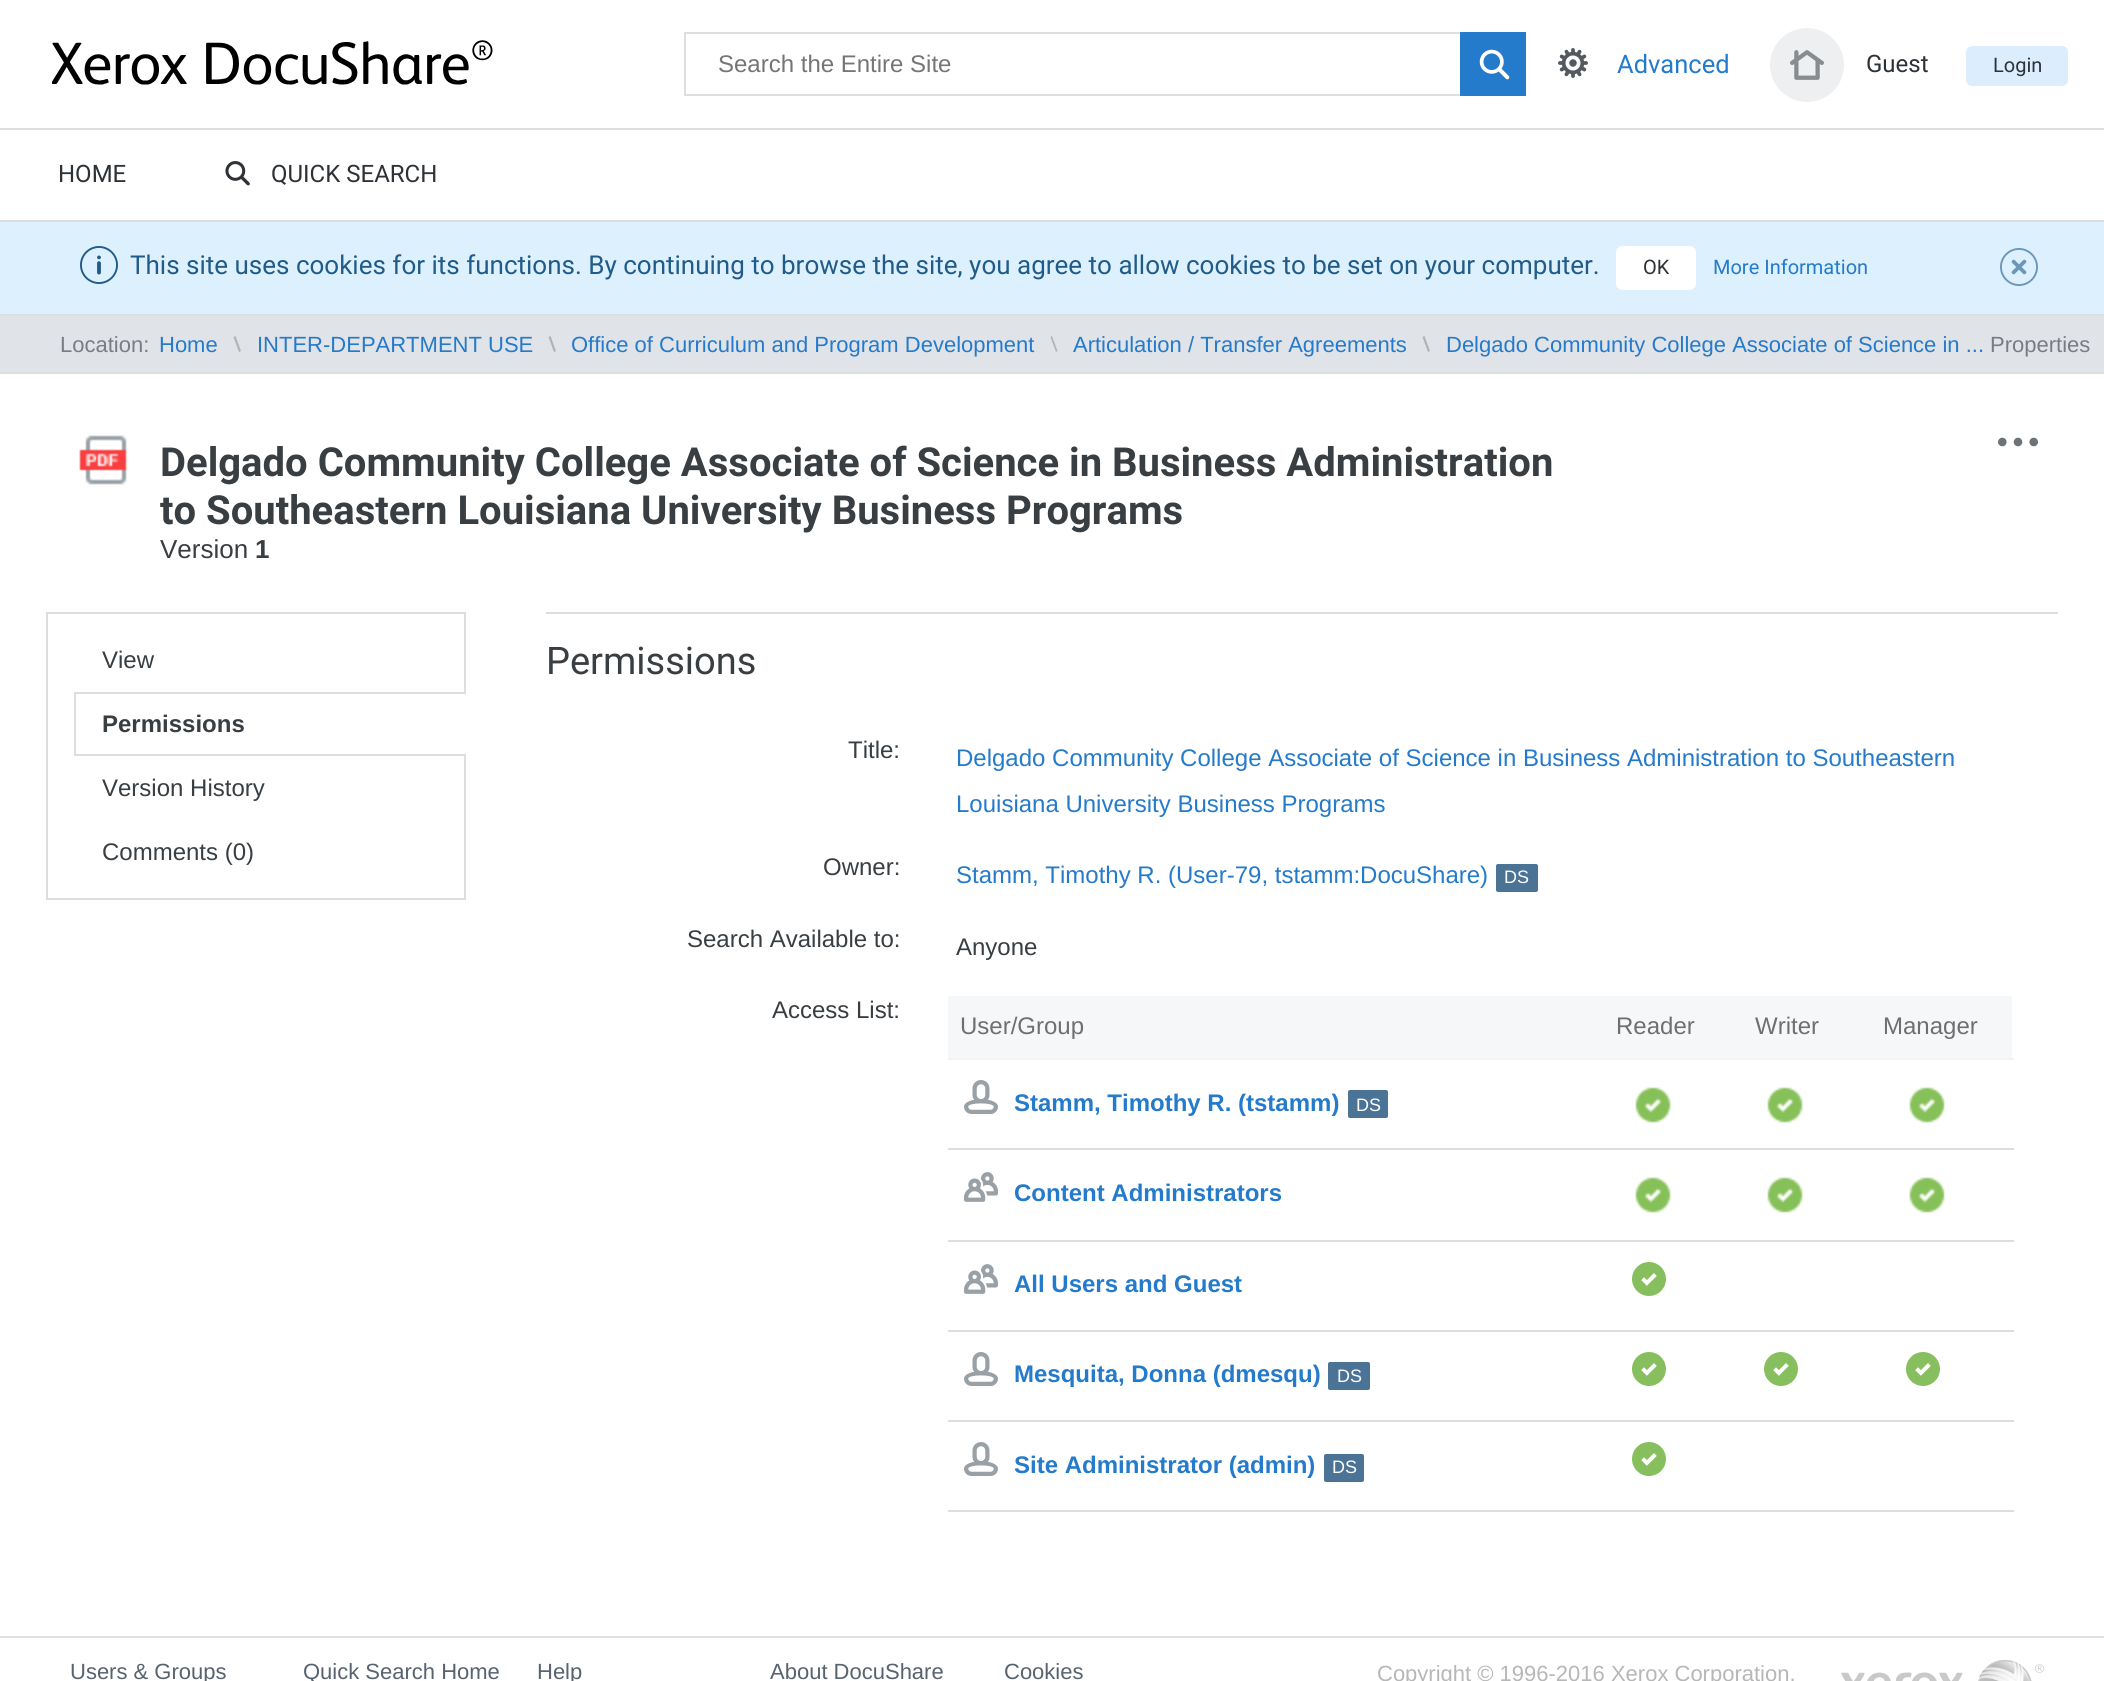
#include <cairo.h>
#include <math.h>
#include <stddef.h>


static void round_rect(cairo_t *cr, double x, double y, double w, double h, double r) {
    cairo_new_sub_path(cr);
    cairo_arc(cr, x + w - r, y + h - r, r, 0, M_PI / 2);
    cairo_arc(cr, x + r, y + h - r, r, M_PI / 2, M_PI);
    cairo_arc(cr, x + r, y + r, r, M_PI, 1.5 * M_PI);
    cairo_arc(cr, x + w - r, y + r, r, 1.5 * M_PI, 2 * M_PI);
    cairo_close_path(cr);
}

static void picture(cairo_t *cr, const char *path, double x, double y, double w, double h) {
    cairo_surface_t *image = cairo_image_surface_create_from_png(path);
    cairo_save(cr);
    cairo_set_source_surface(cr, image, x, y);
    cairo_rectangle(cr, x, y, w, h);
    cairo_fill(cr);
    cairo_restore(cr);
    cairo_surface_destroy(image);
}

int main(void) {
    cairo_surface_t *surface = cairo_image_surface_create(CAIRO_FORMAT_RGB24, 2104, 1681);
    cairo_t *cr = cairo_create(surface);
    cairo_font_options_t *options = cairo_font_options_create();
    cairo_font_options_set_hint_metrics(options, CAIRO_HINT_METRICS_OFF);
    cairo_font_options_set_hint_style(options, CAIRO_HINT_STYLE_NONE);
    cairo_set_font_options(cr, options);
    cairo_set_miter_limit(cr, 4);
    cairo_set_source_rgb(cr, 1, 1, 1);
    cairo_paint(cr);
    picture(cr, "img1.png", 52, 40, 441, 45);
    cairo_rectangle(cr, 685, 33, 840, 62);
    cairo_set_source_rgb(cr, 0.863, 0.871, 0.878);
    cairo_stroke(cr);
    cairo_select_font_face(cr, "Liberation Sans", CAIRO_FONT_SLANT_NORMAL, CAIRO_FONT_WEIGHT_NORMAL);
    cairo_set_font_size(cr, 24);
    cairo_set_source_rgb(cr, 0.459, 0.459, 0.459);
    cairo_move_to(cr, 718, 72);
    cairo_show_text(cr, "Search the Entire Site");
    cairo_set_source_rgb(cr, 0.141, 0.478, 0.796);
    cairo_rectangle(cr, 1460, 32, 66, 64);
    cairo_fill(cr);
    picture(cr, "img2.png", 1479, 49, 31, 31);
    picture(cr, "img3.png", 1558, 48, 30, 30);
    cairo_select_font_face(cr, "Roboto", CAIRO_FONT_SLANT_NORMAL, CAIRO_FONT_WEIGHT_NORMAL);
    cairo_set_font_size(cr, 25.5);
    cairo_move_to(cr, 1617, 73);
    cairo_show_text(cr, "Advanced");
    cairo_set_source_rgb(cr, 0.929, 0.937, 0.945);
    cairo_new_path(cr);
    cairo_arc(cr, 1807, 65, 37, 0, 2 * M_PI);
    cairo_fill(cr);
    picture(cr, "img4.png", 1790, 50, 34, 30);
    cairo_set_font_size(cr, 24);
    cairo_set_source_rgb(cr, 0.18, 0.196, 0.212);
    cairo_move_to(cr, 1866, 72);
    cairo_show_text(cr, "Guest");
    cairo_set_source_rgb(cr, 0.863, 0.933, 0.996);
    round_rect(cr, 1966, 46, 102, 40, 6);
    cairo_fill(cr);
    cairo_set_font_size(cr, 20);
    cairo_set_source_rgb(cr, 0.18, 0.196, 0.212);
    cairo_move_to(cr, 1993, 72);
    cairo_show_text(cr, "Login");
    cairo_set_source_rgb(cr, 0.863, 0.871, 0.878);
    cairo_rectangle(cr, 0, 128, 2104, 2);
    cairo_fill(cr);
    cairo_rectangle(cr, 0, 220, 2104, 2);
    cairo_fill(cr);
    cairo_set_font_size(cr, 24);
    cairo_set_source_rgb(cr, 0.18, 0.196, 0.212);
    cairo_move_to(cr, 58, 182);
    cairo_show_text(cr, "HOME");
    picture(cr, "img5.png", 225, 161, 25, 25);
    cairo_move_to(cr, 271, 182);
    cairo_show_text(cr, "QUICK SEARCH");
    cairo_set_source_rgb(cr, 0.867, 0.941, 0.996);
    cairo_rectangle(cr, 0, 222, 2104, 92);
    cairo_fill(cr);
    cairo_set_source_rgb(cr, 0.863, 0.871, 0.878);
    cairo_rectangle(cr, 0, 314, 2104, 2);
    cairo_fill(cr);
    picture(cr, "img6.png", 80, 246, 38, 38);
    cairo_set_font_size(cr, 26);
    cairo_set_source_rgb(cr, 0.129, 0.361, 0.537);
    cairo_move_to(cr, 130, 274);
    cairo_show_text(cr, "This site uses cookies for its functions. By continuing to browse the site, you agree to allow cookies to be set on your computer.");
    cairo_set_source_rgb(cr, 1, 1, 1);
    round_rect(cr, 1616, 246, 80, 44, 6);
    cairo_fill(cr);
    cairo_set_font_size(cr, 20);
    cairo_set_source_rgb(cr, 0.18, 0.196, 0.212);
    cairo_move_to(cr, 1643, 274);
    cairo_show_text(cr, "OK");
    cairo_set_source_rgb(cr, 0.141, 0.478, 0.796);
    cairo_move_to(cr, 1713, 274);
    cairo_show_text(cr, "More Information");
    picture(cr, "img7.png", 2000, 248, 38, 38);
    cairo_set_source_rgb(cr, 0.878, 0.89, 0.906);
    cairo_rectangle(cr, 0, 316, 2104, 56);
    cairo_fill(cr);
    cairo_set_source_rgb(cr, 0.863, 0.871, 0.878);
    cairo_rectangle(cr, 0, 372, 2104, 2);
    cairo_fill(cr);
    cairo_select_font_face(cr, "Liberation Sans", CAIRO_FONT_SLANT_NORMAL, CAIRO_FONT_WEIGHT_NORMAL);
    cairo_set_font_size(cr, 22);
    cairo_set_source_rgb(cr, 0.475, 0.486, 0.514);
    cairo_move_to(cr, 60, 352);
    cairo_show_text(cr, "Location:");
    cairo_set_source_rgb(cr, 0.141, 0.478, 0.796);
    cairo_move_to(cr, 159, 352);
    cairo_show_text(cr, "Home");
    cairo_set_source_rgb(cr, 0.694, 0.702, 0.718);
    cairo_new_path(cr);
    cairo_move_to(cr, 233.5, 337);
    cairo_line_to(cr, 235.5, 336);
    cairo_line_to(cr, 241, 351);
    cairo_line_to(cr, 239, 352);
    cairo_close_path(cr);
    cairo_fill(cr);
    cairo_set_source_rgb(cr, 0.141, 0.478, 0.796);
    cairo_move_to(cr, 257, 352);
    cairo_show_text(cr, "INTER-DEPARTMENT USE");
    cairo_set_source_rgb(cr, 0.694, 0.702, 0.718);
    cairo_new_path(cr);
    cairo_move_to(cr, 548.5, 337);
    cairo_line_to(cr, 550.5, 336);
    cairo_line_to(cr, 556, 351);
    cairo_line_to(cr, 554, 352);
    cairo_close_path(cr);
    cairo_fill(cr);
    cairo_set_source_rgb(cr, 0.141, 0.478, 0.796);
    cairo_move_to(cr, 571, 352);
    cairo_show_text(cr, "Office of Curriculum and Program Development");
    cairo_set_source_rgb(cr, 0.694, 0.702, 0.718);
    cairo_new_path(cr);
    cairo_move_to(cr, 1050.5, 337);
    cairo_line_to(cr, 1052, 336);
    cairo_line_to(cr, 1057.5, 351);
    cairo_line_to(cr, 1056, 352);
    cairo_close_path(cr);
    cairo_fill(cr);
    cairo_set_source_rgb(cr, 0.141, 0.478, 0.796);
    cairo_move_to(cr, 1073, 352);
    cairo_show_text(cr, "Articulation / Transfer Agreements");
    cairo_set_source_rgb(cr, 0.694, 0.702, 0.718);
    cairo_new_path(cr);
    cairo_move_to(cr, 1422.5, 337);
    cairo_line_to(cr, 1424.5, 336);
    cairo_line_to(cr, 1430, 351);
    cairo_line_to(cr, 1428, 352);
    cairo_close_path(cr);
    cairo_fill(cr);
    cairo_set_source_rgb(cr, 0.141, 0.478, 0.796);
    cairo_move_to(cr, 1446, 352);
    cairo_show_text(cr, "Delgado Community College Associate of Science in ...");
    cairo_set_source_rgb(cr, 0.475, 0.486, 0.514);
    cairo_move_to(cr, 1990, 352);
    cairo_show_text(cr, "Properties");
    picture(cr, "img8.png", 79, 435, 48, 50);
    picture(cr, "img9.png", 1998, 437, 40, 10);
    cairo_select_font_face(cr, "Roboto", CAIRO_FONT_SLANT_NORMAL, CAIRO_FONT_WEIGHT_BOLD);
    cairo_set_font_size(cr, 40);
    cairo_set_source_rgb(cr, 0.22, 0.243, 0.259);
    cairo_move_to(cr, 160, 476);
    cairo_show_text(cr, "Delgado Community College Associate of Science in Business Administration");
    cairo_move_to(cr, 160, 524);
    cairo_show_text(cr, "to Southeastern Louisiana University Business Programs");
    cairo_select_font_face(cr, "Liberation Sans", CAIRO_FONT_SLANT_NORMAL, CAIRO_FONT_WEIGHT_NORMAL);
    cairo_set_font_size(cr, 26);
    cairo_move_to(cr, 160, 558);
    cairo_show_text(cr, "Version");
    cairo_select_font_face(cr, "Liberation Sans", CAIRO_FONT_SLANT_NORMAL, CAIRO_FONT_WEIGHT_BOLD);
    cairo_move_to(cr, 255, 558);
    cairo_show_text(cr, "1");
    cairo_rectangle(cr, 47, 613, 418, 286);
    cairo_set_source_rgb(cr, 0.863, 0.871, 0.878);
    cairo_stroke(cr);
    cairo_select_font_face(cr, "Liberation Sans", CAIRO_FONT_SLANT_NORMAL, CAIRO_FONT_WEIGHT_NORMAL);
    cairo_set_font_size(cr, 24);
    cairo_set_source_rgb(cr, 0.22, 0.243, 0.259);
    cairo_move_to(cr, 102, 668);
    cairo_show_text(cr, "View");
    cairo_set_source_rgb(cr, 1, 1, 1);
    cairo_rectangle(cr, 464, 694, 2, 60);
    cairo_fill(cr);
    cairo_set_source_rgb(cr, 0.863, 0.871, 0.878);
    cairo_rectangle(cr, 74, 692, 392, 2);
    cairo_fill(cr);
    cairo_rectangle(cr, 74, 754, 392, 2);
    cairo_fill(cr);
    cairo_rectangle(cr, 74, 692, 2, 64);
    cairo_fill(cr);
    cairo_select_font_face(cr, "Liberation Sans", CAIRO_FONT_SLANT_NORMAL, CAIRO_FONT_WEIGHT_BOLD);
    cairo_set_source_rgb(cr, 0.22, 0.243, 0.259);
    cairo_move_to(cr, 102, 732);
    cairo_show_text(cr, "Permissions");
    cairo_select_font_face(cr, "Liberation Sans", CAIRO_FONT_SLANT_NORMAL, CAIRO_FONT_WEIGHT_NORMAL);
    cairo_move_to(cr, 102, 796);
    cairo_show_text(cr, "Version History");
    cairo_move_to(cr, 102, 860);
    cairo_show_text(cr, "Comments (0)");
    cairo_set_source_rgb(cr, 0.863, 0.871, 0.878);
    cairo_rectangle(cr, 546, 612, 1512, 2);
    cairo_fill(cr);
    cairo_select_font_face(cr, "Roboto", CAIRO_FONT_SLANT_NORMAL, CAIRO_FONT_WEIGHT_NORMAL);
    cairo_set_font_size(cr, 38);
    cairo_set_source_rgb(cr, 0.22, 0.243, 0.259);
    cairo_move_to(cr, 546, 674);
    cairo_show_text(cr, "Permissions");
    cairo_select_font_face(cr, "Liberation Sans", CAIRO_FONT_SLANT_NORMAL, CAIRO_FONT_WEIGHT_NORMAL);
    cairo_set_font_size(cr, 24);
    cairo_move_to(cr, 848, 758);
    cairo_show_text(cr, "Title:");
    cairo_set_source_rgb(cr, 0.141, 0.478, 0.796);
    cairo_move_to(cr, 956, 766);
    cairo_show_text(cr, "Delgado Community College Associate of Science in Business Administration to Southeastern");
    cairo_move_to(cr, 956, 812);
    cairo_show_text(cr, "Louisiana University Business Programs");
    cairo_set_source_rgb(cr, 0.22, 0.243, 0.259);
    cairo_move_to(cr, 823, 875);
    cairo_show_text(cr, "Owner:");
    cairo_set_source_rgb(cr, 0.141, 0.478, 0.796);
    cairo_move_to(cr, 956, 883);
    cairo_show_text(cr, "Stamm, Timothy R. (User-79, tstamm:DocuShare)");
    cairo_set_source_rgb(cr, 0.294, 0.451, 0.588);
    round_rect(cr, 1496, 864, 42, 28, 2);
    cairo_fill(cr);
    cairo_set_font_size(cr, 18);
    cairo_set_source_rgb(cr, 1, 1, 1);
    cairo_move_to(cr, 1504, 883);
    cairo_show_text(cr, "DS");
    cairo_set_font_size(cr, 24);
    cairo_set_source_rgb(cr, 0.22, 0.243, 0.259);
    cairo_move_to(cr, 687, 947);
    cairo_show_text(cr, "Search Available to:");
    cairo_move_to(cr, 956, 955);
    cairo_show_text(cr, "Anyone");
    cairo_move_to(cr, 772, 1018);
    cairo_show_text(cr, "Access List:");
    cairo_set_source_rgb(cr, 0.961, 0.965, 0.969);
    cairo_rectangle(cr, 948, 996, 1064, 62);
    cairo_fill(cr);
    cairo_set_source_rgb(cr, 0.427, 0.435, 0.443);
    cairo_move_to(cr, 960, 1034);
    cairo_show_text(cr, "User/Group");
    cairo_move_to(cr, 1616, 1034);
    cairo_show_text(cr, "Reader");
    cairo_move_to(cr, 1755, 1034);
    cairo_show_text(cr, "Writer");
    cairo_set_source_rgb(cr, 0.953, 0.953, 0.953);
    cairo_rectangle(cr, 948, 1058, 1066, 2);
    cairo_fill(cr);
    cairo_set_source_rgb(cr, 0.427, 0.435, 0.443);
    cairo_move_to(cr, 1883, 1034);
    cairo_show_text(cr, "Manager");
    cairo_set_source_rgb(cr, 0.863, 0.871, 0.878);
    cairo_rectangle(cr, 948, 1148, 1066, 2);
    cairo_fill(cr);
    picture(cr, "img10.png", 1909, 1087, 36, 36);
    picture(cr, "img11.png", 964, 1080, 34, 34);
    cairo_select_font_face(cr, "Liberation Sans", CAIRO_FONT_SLANT_NORMAL, CAIRO_FONT_WEIGHT_BOLD);
    cairo_set_source_rgb(cr, 0.141, 0.478, 0.796);
    cairo_move_to(cr, 1014, 1111);
    cairo_show_text(cr, "Stamm, Timothy R. (tstamm)");
    cairo_set_source_rgb(cr, 0.294, 0.451, 0.588);
    round_rect(cr, 1348, 1090, 40, 28, 2);
    cairo_fill(cr);
    cairo_select_font_face(cr, "Liberation Sans", CAIRO_FONT_SLANT_NORMAL, CAIRO_FONT_WEIGHT_NORMAL);
    cairo_set_font_size(cr, 18);
    cairo_set_source_rgb(cr, 1, 1, 1);
    cairo_move_to(cr, 1356, 1111);
    cairo_show_text(cr, "DS");
    picture(cr, "img10.png", 1635, 1087, 36, 36);
    picture(cr, "img10.png", 1767, 1087, 36, 36);
    cairo_set_source_rgb(cr, 0.863, 0.871, 0.878);
    cairo_rectangle(cr, 948, 1240, 1066, 2);
    cairo_fill(cr);
    picture(cr, "img10.png", 1909, 1177, 36, 36);
    picture(cr, "img12.png", 964, 1172, 34, 30);
    cairo_select_font_face(cr, "Liberation Sans", CAIRO_FONT_SLANT_NORMAL, CAIRO_FONT_WEIGHT_BOLD);
    cairo_set_font_size(cr, 24);
    cairo_set_source_rgb(cr, 0.141, 0.478, 0.796);
    cairo_move_to(cr, 1014, 1201);
    cairo_show_text(cr, "Content Administrators");
    picture(cr, "img10.png", 1635, 1177, 36, 36);
    picture(cr, "img10.png", 1767, 1177, 36, 36);
    picture(cr, "img12.png", 964, 1264, 34, 30);
    cairo_move_to(cr, 1014, 1292);
    cairo_show_text(cr, "All Users and Guest");
    picture(cr, "img13.png", 1632, 1262, 34, 34);
    cairo_set_source_rgb(cr, 0.863, 0.871, 0.878);
    cairo_rectangle(cr, 948, 1330, 1066, 2);
    cairo_fill(cr);
    cairo_rectangle(cr, 948, 1420, 1066, 2);
    cairo_fill(cr);
    picture(cr, "img13.png", 1906, 1352, 34, 34);
    picture(cr, "img11.png", 964, 1352, 34, 34);
    cairo_set_source_rgb(cr, 0.141, 0.478, 0.796);
    cairo_move_to(cr, 1014, 1382);
    cairo_show_text(cr, "Mesquita, Donna (dmesqu)");
    cairo_set_source_rgb(cr, 0.294, 0.451, 0.588);
    round_rect(cr, 1328, 1362, 42, 28, 2);
    cairo_fill(cr);
    cairo_select_font_face(cr, "Liberation Sans", CAIRO_FONT_SLANT_NORMAL, CAIRO_FONT_WEIGHT_NORMAL);
    cairo_set_font_size(cr, 18);
    cairo_set_source_rgb(cr, 1, 1, 1);
    cairo_move_to(cr, 1337, 1382);
    cairo_show_text(cr, "DS");
    picture(cr, "img13.png", 1632, 1352, 34, 34);
    picture(cr, "img13.png", 1764, 1352, 34, 34);
    picture(cr, "img11.png", 964, 1442, 34, 34);
    cairo_select_font_face(cr, "Liberation Sans", CAIRO_FONT_SLANT_NORMAL, CAIRO_FONT_WEIGHT_BOLD);
    cairo_set_font_size(cr, 24);
    cairo_set_source_rgb(cr, 0.141, 0.478, 0.796);
    cairo_move_to(cr, 1014, 1473);
    cairo_show_text(cr, "Site Administrator (admin)");
    cairo_set_source_rgb(cr, 0.294, 0.451, 0.588);
    round_rect(cr, 1324, 1454, 40, 28, 2);
    cairo_fill(cr);
    cairo_select_font_face(cr, "Liberation Sans", CAIRO_FONT_SLANT_NORMAL, CAIRO_FONT_WEIGHT_NORMAL);
    cairo_set_font_size(cr, 18);
    cairo_set_source_rgb(cr, 1, 1, 1);
    cairo_move_to(cr, 1332, 1473);
    cairo_show_text(cr, "DS");
    picture(cr, "img13.png", 1632, 1442, 34, 34);
    cairo_set_source_rgb(cr, 0.863, 0.871, 0.878);
    cairo_rectangle(cr, 948, 1510, 1066, 2);
    cairo_fill(cr);
    cairo_set_source_rgb(cr, 0.871, 0.878, 0.882);
    cairo_rectangle(cr, 0, 1636, 2104, 2);
    cairo_fill(cr);
    cairo_set_font_size(cr, 22);
    cairo_set_source_rgb(cr, 0.345, 0.388, 0.435);
    cairo_move_to(cr, 70, 1679);
    cairo_show_text(cr, "Users & Groups");
    cairo_move_to(cr, 303, 1679);
    cairo_show_text(cr, "Quick Search Home");
    cairo_move_to(cr, 537, 1679);
    cairo_show_text(cr, "Help");
    cairo_move_to(cr, 770, 1679);
    cairo_show_text(cr, "About DocuShare");
    cairo_move_to(cr, 1004, 1679);
    cairo_show_text(cr, "Cookies");
    cairo_set_source_rgb(cr, 0.718, 0.718, 0.718);
    cairo_move_to(cr, 1377, 1681);
    cairo_show_text(cr, "Copyright © 1996-2016 Xerox Corporation.");
    picture(cr, "img14.png", 1841, 1660, 203, 21);
    cairo_surface_write_to_png(surface, "page.png");
    cairo_font_options_destroy(options);
    cairo_destroy(cr);
    cairo_surface_destroy(surface);
    return 0;
}
